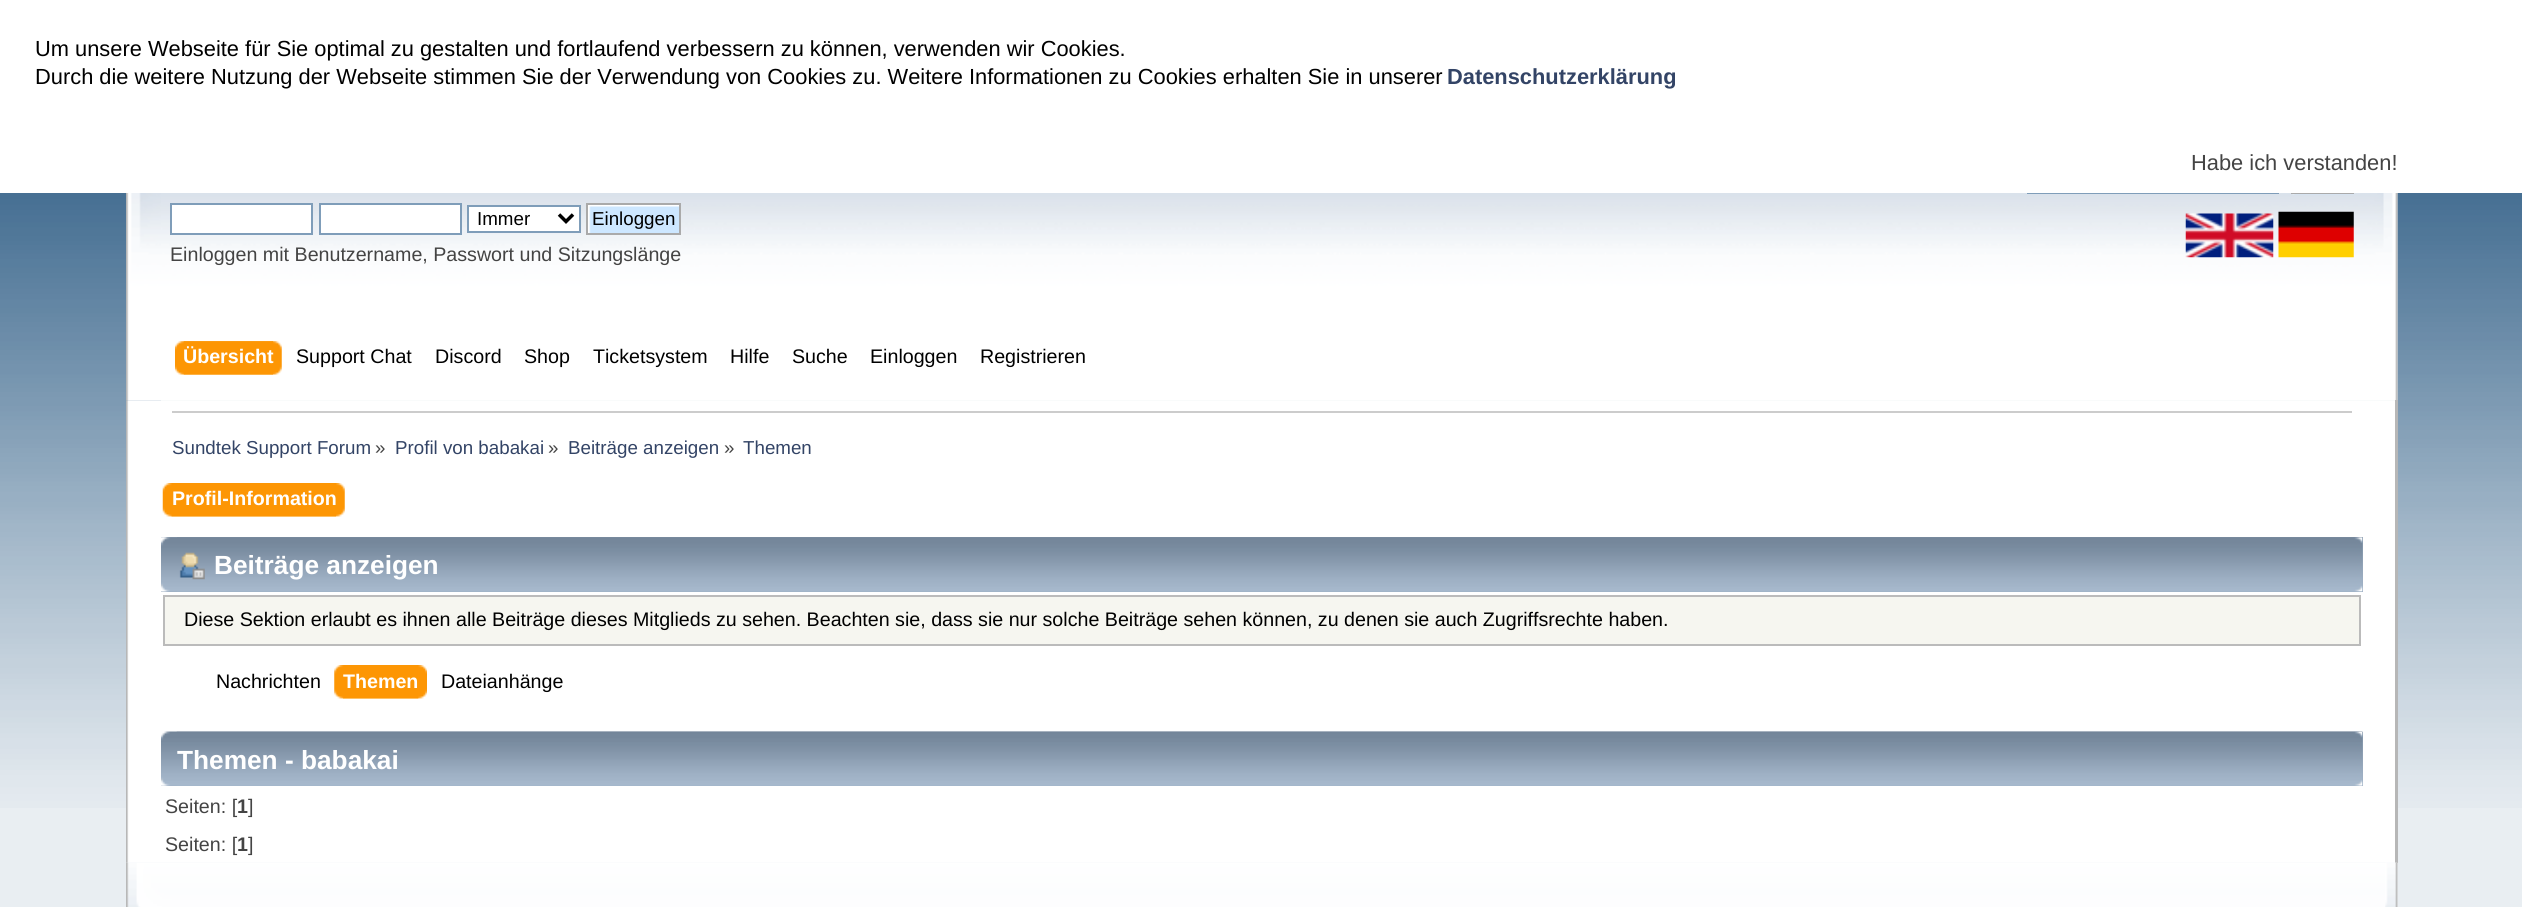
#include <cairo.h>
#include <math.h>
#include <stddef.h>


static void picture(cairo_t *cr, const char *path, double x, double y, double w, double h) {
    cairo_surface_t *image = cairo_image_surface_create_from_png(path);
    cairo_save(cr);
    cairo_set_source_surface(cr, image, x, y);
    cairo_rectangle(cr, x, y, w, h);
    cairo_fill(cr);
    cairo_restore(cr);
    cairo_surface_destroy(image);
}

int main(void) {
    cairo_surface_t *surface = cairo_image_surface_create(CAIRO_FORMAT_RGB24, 2522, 907);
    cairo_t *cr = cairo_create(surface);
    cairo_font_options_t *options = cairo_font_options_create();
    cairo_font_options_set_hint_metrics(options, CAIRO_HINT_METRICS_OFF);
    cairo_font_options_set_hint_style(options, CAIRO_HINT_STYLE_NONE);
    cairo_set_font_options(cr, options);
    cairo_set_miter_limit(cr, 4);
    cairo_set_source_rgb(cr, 0.914, 0.933, 0.949);
    cairo_paint(cr);
    picture(cr, "img1.png", 0, 193, 2522, 615);
    picture(cr, "img2.png", 126, 193, 2272, 208);
    picture(cr, "img3.png", 161, 193, 2237, 208);
    cairo_rectangle(cr, 2028, 164, 250, 29);
    cairo_set_source_rgb(cr, 0.498, 0.616, 0.725);
    cairo_stroke(cr);
    cairo_rectangle(cr, 2292, 164, 61, 29);
    cairo_set_source_rgb(cr, 0.667, 0.667, 0.667);
    cairo_stroke(cr);
    cairo_set_source_rgb(cr, 1, 1, 1);
    cairo_rectangle(cr, 0, 0, 2522, 193);
    cairo_fill(cr);
    cairo_select_font_face(cr, "Liberation Sans", CAIRO_FONT_SLANT_NORMAL, CAIRO_FONT_WEIGHT_NORMAL);
    cairo_set_font_size(cr, 21.85);
    cairo_set_source_rgb(cr, 0, 0, 0);
    cairo_move_to(cr, 35, 56);
    cairo_show_text(cr, "Um unsere Webseite für Sie optimal zu gestalten und fortlaufend verbessern zu können, verwenden wir Cookies.");
    cairo_move_to(cr, 35, 84);
    cairo_show_text(cr, "Durch die weitere Nutzung der Webseite stimmen Sie der Verwendung von Cookies zu. Weitere Informationen zu Cookies erhalten Sie in unserer");
    cairo_select_font_face(cr, "Liberation Sans", CAIRO_FONT_SLANT_NORMAL, CAIRO_FONT_WEIGHT_BOLD);
    cairo_set_source_rgb(cr, 0.2, 0.267, 0.4);
    cairo_move_to(cr, 1447, 84);
    cairo_show_text(cr, "Datenschutzerklärung");
    cairo_select_font_face(cr, "Liberation Sans", CAIRO_FONT_SLANT_NORMAL, CAIRO_FONT_WEIGHT_NORMAL);
    cairo_set_source_rgb(cr, 0.267, 0.267, 0.267);
    cairo_move_to(cr, 2191, 170);
    cairo_show_text(cr, "Habe ich verstanden!");
    cairo_set_source_rgb(cr, 1, 1, 1);
    cairo_rectangle(cr, 171, 204, 141, 30);
    cairo_fill_preserve(cr);
    cairo_set_source_rgb(cr, 0.498, 0.616, 0.725);
    cairo_stroke(cr);
    cairo_set_source_rgb(cr, 1, 1, 1);
    cairo_rectangle(cr, 320, 204, 141, 30);
    cairo_fill_preserve(cr);
    cairo_set_source_rgb(cr, 0.498, 0.616, 0.725);
    cairo_stroke(cr);
    cairo_set_source_rgb(cr, 1, 1, 1);
    cairo_rectangle(cr, 468, 206, 112, 26);
    cairo_fill_preserve(cr);
    cairo_set_source_rgb(cr, 0.498, 0.616, 0.725);
    cairo_stroke(cr);
    cairo_new_path(cr);
    cairo_move_to(cr, 559, 214.5);
    cairo_line_to(cr, 566, 221.5);
    cairo_line_to(cr, 573, 214.5);
    cairo_set_source_rgb(cr, 0, 0, 0);
    cairo_set_line_width(cr, 3.5);
    cairo_stroke(cr);
    cairo_set_font_size(cr, 18.75);
    cairo_move_to(cr, 477, 225);
    cairo_show_text(cr, "Immer");
    picture(cr, "img4.png", 588, 205, 91, 28);
    cairo_rectangle(cr, 587, 204, 93, 30);
    cairo_set_source_rgb(cr, 0.667, 0.667, 0.667);
    cairo_set_line_width(cr, 2);
    cairo_stroke(cr);
    cairo_set_source_rgb(cr, 0, 0, 0);
    cairo_move_to(cr, 592, 225);
    cairo_show_text(cr, "Einloggen");
    cairo_set_font_size(cr, 19.65);
    cairo_set_source_rgb(cr, 0.267, 0.267, 0.267);
    cairo_move_to(cr, 170, 261);
    cairo_show_text(cr, "Einloggen mit Benutzername, Passwort und Sitzungslänge");
    picture(cr, "img5.png", 2292, 194, 62, 1);
    picture(cr, "img6.png", 2185, 213, 89, 45);
    picture(cr, "img7.png", 2278, 211, 76, 47);
    picture(cr, "img8.png", 183, 341, 99, 34);
    picture(cr, "img9.png", 175, 341, 98, 34);
    cairo_select_font_face(cr, "Liberation Sans", CAIRO_FONT_SLANT_NORMAL, CAIRO_FONT_WEIGHT_BOLD);
    cairo_set_source_rgb(cr, 1, 1, 1);
    cairo_move_to(cr, 183, 363);
    cairo_show_text(cr, "Übersicht");
    cairo_select_font_face(cr, "Liberation Sans", CAIRO_FONT_SLANT_NORMAL, CAIRO_FONT_WEIGHT_NORMAL);
    cairo_set_source_rgb(cr, 0, 0, 0);
    cairo_move_to(cr, 296, 363);
    cairo_show_text(cr, "Support Chat");
    cairo_move_to(cr, 435, 363);
    cairo_show_text(cr, "Discord");
    cairo_move_to(cr, 524, 363);
    cairo_show_text(cr, "Shop");
    cairo_move_to(cr, 593, 363);
    cairo_show_text(cr, "Ticketsystem");
    cairo_move_to(cr, 730, 363);
    cairo_show_text(cr, "Hilfe");
    cairo_move_to(cr, 792, 363);
    cairo_show_text(cr, "Suche");
    cairo_move_to(cr, 870, 363);
    cairo_show_text(cr, "Einloggen");
    cairo_move_to(cr, 980, 363);
    cairo_show_text(cr, "Registrieren");
    picture(cr, "img10.png", 126, 400, 2269, 463);
    cairo_set_source_rgb(cr, 0.718, 0.718, 0.718);
    cairo_rectangle(cr, 2395, 400, 3, 463);
    cairo_fill(cr);
    cairo_set_source_rgb(cr, 0.8, 0.8, 0.8);
    cairo_rectangle(cr, 172, 411, 2180, 2);
    cairo_fill(cr);
    cairo_set_font_size(cr, 18.75);
    cairo_set_source_rgb(cr, 0.2, 0.267, 0.4);
    cairo_move_to(cr, 172, 454);
    cairo_show_text(cr, "Sundtek Support Forum");
    cairo_set_source_rgb(cr, 0.267, 0.267, 0.267);
    cairo_move_to(cr, 375, 454);
    cairo_show_text(cr, "»");
    cairo_set_source_rgb(cr, 0.2, 0.267, 0.4);
    cairo_move_to(cr, 395, 454);
    cairo_show_text(cr, "Profil von babakai");
    cairo_set_source_rgb(cr, 0.267, 0.267, 0.267);
    cairo_move_to(cr, 548, 454);
    cairo_show_text(cr, "»");
    cairo_set_source_rgb(cr, 0.2, 0.267, 0.4);
    cairo_move_to(cr, 568, 454);
    cairo_show_text(cr, "Beiträge anzeigen");
    cairo_set_source_rgb(cr, 0.267, 0.267, 0.267);
    cairo_move_to(cr, 724, 454);
    cairo_show_text(cr, "»");
    cairo_set_source_rgb(cr, 0.2, 0.267, 0.4);
    cairo_move_to(cr, 743, 454);
    cairo_show_text(cr, "Themen");
    picture(cr, "img11.png", 171, 483, 174, 34);
    picture(cr, "img12.png", 162, 483, 174, 34);
    cairo_select_font_face(cr, "Liberation Sans", CAIRO_FONT_SLANT_NORMAL, CAIRO_FONT_WEIGHT_BOLD);
    cairo_set_font_size(cr, 19.65);
    cairo_set_source_rgb(cr, 1, 1, 1);
    cairo_move_to(cr, 172, 505);
    cairo_show_text(cr, "Profil-Information");
    cairo_set_source_rgb(cr, 0.6, 0.671, 0.749);
    cairo_rectangle(cr, 161, 537, 2202, 55);
    cairo_fill(cr);
    picture(cr, "img13.png", 161, 537, 2202, 55);
    picture(cr, "img14.png", 177, 537, 2186, 55);
    picture(cr, "img15.png", 179, 552, 26, 28);
    cairo_set_font_size(cr, 26.25);
    cairo_set_source_rgb(cr, 1, 1, 1);
    cairo_move_to(cr, 214, 574);
    cairo_show_text(cr, "Beiträge anzeigen");
    cairo_set_source_rgb(cr, 0.961, 0.961, 0.941);
    cairo_rectangle(cr, 164, 596, 2196, 49);
    cairo_fill_preserve(cr);
    cairo_set_source_rgb(cr, 0.733, 0.733, 0.733);
    cairo_stroke(cr);
    cairo_select_font_face(cr, "Liberation Sans", CAIRO_FONT_SLANT_NORMAL, CAIRO_FONT_WEIGHT_NORMAL);
    cairo_set_font_size(cr, 19.65);
    cairo_set_source_rgb(cr, 0, 0, 0);
    cairo_move_to(cr, 184, 626);
    cairo_show_text(cr, "Diese Sektion erlaubt es ihnen alle Beiträge dieses Mitglieds zu sehen. Beachten sie, dass sie nur solche Beiträge sehen können, zu denen sie auch Zugriffsrechte haben.");
    cairo_move_to(cr, 216, 688);
    cairo_show_text(cr, "Nachrichten");
    picture(cr, "img16.png", 343, 665, 84, 34);
    picture(cr, "img17.png", 334, 665, 85, 34);
    cairo_select_font_face(cr, "Liberation Sans", CAIRO_FONT_SLANT_NORMAL, CAIRO_FONT_WEIGHT_BOLD);
    cairo_set_source_rgb(cr, 1, 1, 1);
    cairo_move_to(cr, 343, 688);
    cairo_show_text(cr, "Themen");
    cairo_select_font_face(cr, "Liberation Sans", CAIRO_FONT_SLANT_NORMAL, CAIRO_FONT_WEIGHT_NORMAL);
    cairo_set_source_rgb(cr, 0, 0, 0);
    cairo_move_to(cr, 441, 688);
    cairo_show_text(cr, "Dateianhänge");
    cairo_set_source_rgb(cr, 0.6, 0.671, 0.749);
    cairo_rectangle(cr, 161, 732, 2202, 54);
    cairo_fill(cr);
    picture(cr, "img18.png", 161, 731, 2202, 55);
    picture(cr, "img19.png", 176, 731, 2187, 55);
    cairo_select_font_face(cr, "Liberation Sans", CAIRO_FONT_SLANT_NORMAL, CAIRO_FONT_WEIGHT_BOLD);
    cairo_set_font_size(cr, 26.25);
    cairo_set_source_rgb(cr, 1, 1, 1);
    cairo_move_to(cr, 177, 769);
    cairo_show_text(cr, "Themen - babakai");
    cairo_select_font_face(cr, "Liberation Sans", CAIRO_FONT_SLANT_NORMAL, CAIRO_FONT_WEIGHT_NORMAL);
    cairo_set_font_size(cr, 19.65);
    cairo_set_source_rgb(cr, 0.267, 0.267, 0.267);
    cairo_move_to(cr, 165, 813);
    cairo_show_text(cr, "Seiten: [");
    cairo_select_font_face(cr, "Liberation Sans", CAIRO_FONT_SLANT_NORMAL, CAIRO_FONT_WEIGHT_BOLD);
    cairo_move_to(cr, 237, 813);
    cairo_show_text(cr, "1");
    cairo_select_font_face(cr, "Liberation Sans", CAIRO_FONT_SLANT_NORMAL, CAIRO_FONT_WEIGHT_NORMAL);
    cairo_move_to(cr, 248, 813);
    cairo_show_text(cr, "]");
    cairo_move_to(cr, 165, 851);
    cairo_show_text(cr, "Seiten: [");
    cairo_select_font_face(cr, "Liberation Sans", CAIRO_FONT_SLANT_NORMAL, CAIRO_FONT_WEIGHT_BOLD);
    cairo_move_to(cr, 237, 851);
    cairo_show_text(cr, "1");
    cairo_select_font_face(cr, "Liberation Sans", CAIRO_FONT_SLANT_NORMAL, CAIRO_FONT_WEIGHT_NORMAL);
    cairo_move_to(cr, 248, 851);
    cairo_show_text(cr, "]");
    picture(cr, "img20.png", 126, 862, 2272, 45);
    picture(cr, "img21.png", 2385, 862, 13, 45);
    cairo_surface_write_to_png(surface, "page.png");
    cairo_font_options_destroy(options);
    cairo_destroy(cr);
    cairo_surface_destroy(surface);
    return 0;
}
